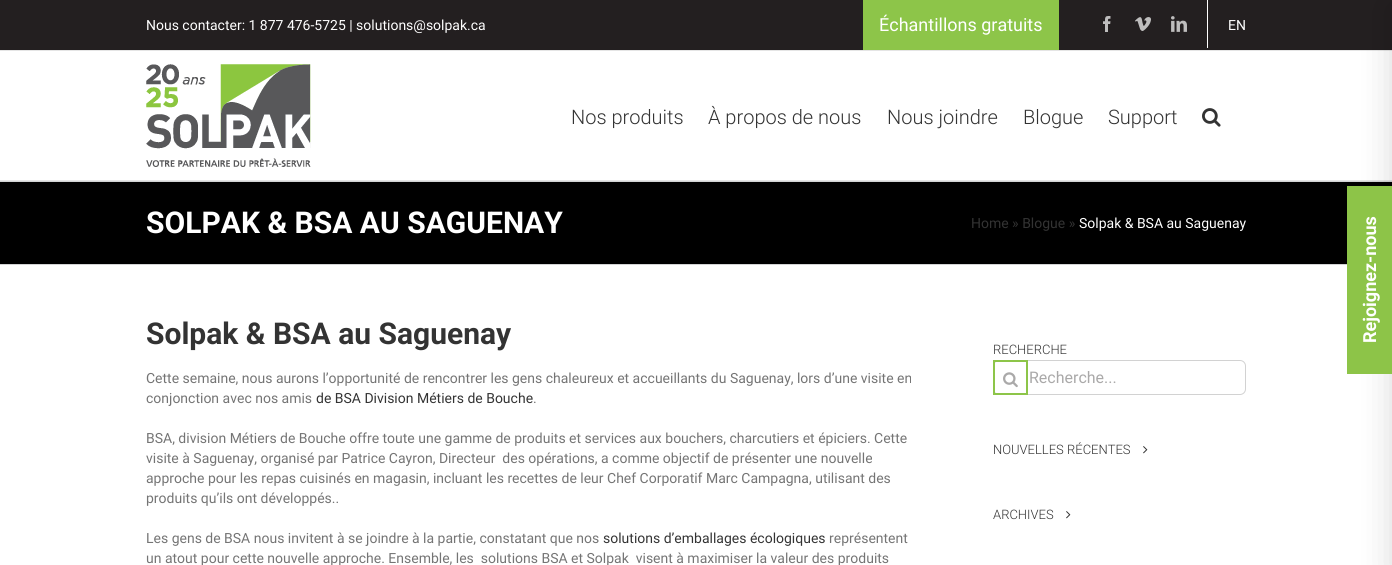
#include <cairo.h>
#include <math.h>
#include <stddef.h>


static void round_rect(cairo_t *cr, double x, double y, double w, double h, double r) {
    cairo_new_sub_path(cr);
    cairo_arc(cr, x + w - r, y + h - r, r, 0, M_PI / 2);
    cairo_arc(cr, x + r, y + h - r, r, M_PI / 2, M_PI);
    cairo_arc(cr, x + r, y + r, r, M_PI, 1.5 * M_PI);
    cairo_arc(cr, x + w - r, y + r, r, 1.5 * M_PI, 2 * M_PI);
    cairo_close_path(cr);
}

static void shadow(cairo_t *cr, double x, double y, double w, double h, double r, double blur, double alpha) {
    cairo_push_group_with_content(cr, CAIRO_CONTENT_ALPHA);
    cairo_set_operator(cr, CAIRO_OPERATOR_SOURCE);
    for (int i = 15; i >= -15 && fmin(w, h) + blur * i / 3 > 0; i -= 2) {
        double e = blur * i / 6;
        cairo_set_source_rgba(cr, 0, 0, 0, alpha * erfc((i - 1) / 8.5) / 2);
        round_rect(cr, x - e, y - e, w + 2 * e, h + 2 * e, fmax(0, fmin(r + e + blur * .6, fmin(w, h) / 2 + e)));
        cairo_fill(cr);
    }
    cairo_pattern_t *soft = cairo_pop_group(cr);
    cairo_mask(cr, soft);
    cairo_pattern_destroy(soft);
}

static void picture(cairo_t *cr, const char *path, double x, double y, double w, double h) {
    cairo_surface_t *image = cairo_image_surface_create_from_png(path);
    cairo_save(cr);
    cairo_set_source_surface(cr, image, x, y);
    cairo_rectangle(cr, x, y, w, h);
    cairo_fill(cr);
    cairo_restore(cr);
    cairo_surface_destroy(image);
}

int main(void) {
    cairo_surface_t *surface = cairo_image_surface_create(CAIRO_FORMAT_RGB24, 1392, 565);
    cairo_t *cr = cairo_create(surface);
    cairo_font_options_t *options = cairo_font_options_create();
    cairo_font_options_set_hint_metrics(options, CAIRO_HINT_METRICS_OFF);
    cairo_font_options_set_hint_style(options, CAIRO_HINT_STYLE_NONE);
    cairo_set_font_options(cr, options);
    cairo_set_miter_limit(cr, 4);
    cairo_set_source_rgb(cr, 1, 1, 1);
    cairo_paint(cr);
    cairo_set_source_rgb(cr, 0.137, 0.122, 0.125);
    cairo_rectangle(cr, 0, 0, 1392, 50);
    cairo_fill(cr);
    cairo_set_source_rgb(cr, 0.898, 0.898, 0.898);
    cairo_rectangle(cr, 0, 50, 1392, 1);
    cairo_fill(cr);
    cairo_select_font_face(cr, "Roboto", CAIRO_FONT_SLANT_NORMAL, CAIRO_FONT_WEIGHT_NORMAL);
    cairo_set_font_size(cr, 14);
    cairo_set_source_rgb(cr, 1, 1, 1);
    cairo_move_to(cr, 146, 30);
    cairo_show_text(cr, "Nous contacter: 1 877 476-5725 | solutions@solpak.ca");
    cairo_set_source_rgb(cr, 0.553, 0.773, 0.286);
    cairo_rectangle(cr, 863, 0, 196, 50);
    cairo_fill(cr);
    cairo_set_font_size(cr, 18);
    cairo_set_source_rgb(cr, 1, 1, 1);
    cairo_move_to(cr, 879, 31);
    cairo_show_text(cr, "Échantillons gratuits");
    picture(cr, "img1.png", 1103, 16, 8, 16);
    picture(cr, "img2.png", 1135, 17, 16, 14);
    picture(cr, "img3.png", 1171, 16, 16, 16);
    cairo_rectangle(cr, 1207, 0, 1, 48);
    cairo_fill(cr);
    cairo_set_font_size(cr, 14);
    cairo_move_to(cr, 1228, 30);
    cairo_show_text(cr, "EN");
    cairo_set_source_rgb(cr, 0.898, 0.898, 0.898);
    cairo_rectangle(cr, 0, 180, 1392, 1);
    cairo_fill(cr);
    picture(cr, "img4.png", 146, 64, 165, 103);
    cairo_select_font_face(cr, "Roboto Light", CAIRO_FONT_SLANT_NORMAL, CAIRO_FONT_WEIGHT_NORMAL);
    cairo_set_font_size(cr, 20);
    cairo_set_source_rgb(cr, 0.2, 0.2, 0.2);
    cairo_move_to(cr, 571, 124);
    cairo_show_text(cr, "Nos produits");
    cairo_move_to(cr, 708, 124);
    cairo_show_text(cr, "À propos de nous");
    cairo_move_to(cr, 887, 124);
    cairo_show_text(cr, "Nous joindre");
    cairo_move_to(cr, 1023, 124);
    cairo_show_text(cr, "Blogue");
    cairo_move_to(cr, 1108, 124);
    cairo_show_text(cr, "Support");
    picture(cr, "img5.png", 1202, 108, 19, 19);
    cairo_set_source_rgb(cr, 0, 0, 0);
    cairo_rectangle(cr, 0, 182, 1392, 82);
    cairo_fill(cr);
    cairo_set_source_rgb(cr, 0.824, 0.827, 0.831);
    cairo_rectangle(cr, 0, 181, 1392, 1);
    cairo_fill(cr);
    cairo_rectangle(cr, 0, 264, 1347, 1);
    cairo_fill(cr);
    cairo_select_font_face(cr, "Roboto", CAIRO_FONT_SLANT_NORMAL, CAIRO_FONT_WEIGHT_BOLD);
    cairo_set_font_size(cr, 30);
    cairo_set_source_rgb(cr, 1, 1, 1);
    cairo_move_to(cr, 146, 233);
    cairo_show_text(cr, "SOLPAK & BSA AU SAGUENAY");
    cairo_select_font_face(cr, "Roboto", CAIRO_FONT_SLANT_NORMAL, CAIRO_FONT_WEIGHT_NORMAL);
    cairo_set_font_size(cr, 14);
    cairo_set_source_rgb(cr, 0.2, 0.2, 0.2);
    cairo_move_to(cr, 971, 228);
    cairo_show_text(cr, "Home » Blogue »");
    cairo_set_source_rgb(cr, 1, 1, 1);
    cairo_move_to(cr, 1079, 228);
    cairo_show_text(cr, "Solpak & BSA au Saguenay");
    cairo_set_source_rgb(cr, 0, 0, 0);
    shadow(cr, 1392, 6, 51, 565, 0, 17, 0.15);
    cairo_set_source_rgb(cr, 0.553, 0.769, 0.282);
    cairo_rectangle(cr, 1347, 186, 45, 188);
    cairo_fill(cr);
    cairo_select_font_face(cr, "Roboto", CAIRO_FONT_SLANT_NORMAL, CAIRO_FONT_WEIGHT_BOLD);
    cairo_set_font_size(cr, 18);
    cairo_set_source_rgb(cr, 1, 1, 1);
    cairo_save(cr);
    cairo_translate(cr, 1376, 343);
    cairo_rotate(cr, -90 * M_PI / 180);
    cairo_move_to(cr, 0, 0);
    cairo_show_text(cr, "Rejoignez-nous");
    cairo_restore(cr);
    cairo_set_font_size(cr, 30);
    cairo_set_source_rgb(cr, 0.2, 0.2, 0.2);
    cairo_move_to(cr, 146, 344);
    cairo_show_text(cr, "Solpak & BSA au Saguenay");
    cairo_select_font_face(cr, "Roboto", CAIRO_FONT_SLANT_NORMAL, CAIRO_FONT_WEIGHT_NORMAL);
    cairo_set_font_size(cr, 14);
    cairo_set_source_rgb(cr, 0.455, 0.455, 0.455);
    cairo_move_to(cr, 146, 383);
    cairo_show_text(cr, "Cette semaine, nous aurons l’opportunité de rencontrer les gens chaleureux et accueillants du Saguenay, lors d’une visite en");
    cairo_move_to(cr, 146, 403);
    cairo_show_text(cr, "conjonction avec nos amis");
    cairo_set_source_rgb(cr, 0.2, 0.2, 0.2);
    cairo_move_to(cr, 316, 403);
    cairo_show_text(cr, "de BSA Division Métiers de Bouche");
    cairo_set_source_rgb(cr, 0.455, 0.455, 0.455);
    cairo_move_to(cr, 533, 403);
    cairo_show_text(cr, ".");
    cairo_move_to(cr, 146, 443);
    cairo_show_text(cr, "BSA, division Métiers de Bouche offre toute une gamme de produits et services aux bouchers, charcutiers et épiciers. Cette");
    cairo_move_to(cr, 146, 463);
    cairo_show_text(cr, "visite à Saguenay, organisé par Patrice Cayron, Directeur  des opérations, a comme objectif de présenter une nouvelle");
    cairo_move_to(cr, 146, 483);
    cairo_show_text(cr, "approche pour les repas cuisinés en magasin, incluant les recettes de leur Chef Corporatif Marc Campagna, utilisant des");
    cairo_move_to(cr, 146, 503);
    cairo_show_text(cr, "produits qu’ils ont développés..");
    cairo_move_to(cr, 146, 543);
    cairo_show_text(cr, "Les gens de BSA nous invitent à se joindre à la partie, constatant que nos");
    cairo_set_source_rgb(cr, 0.2, 0.2, 0.2);
    cairo_move_to(cr, 603, 543);
    cairo_show_text(cr, "solutions d’emballages écologiques");
    cairo_set_source_rgb(cr, 0.455, 0.455, 0.455);
    cairo_move_to(cr, 829, 543);
    cairo_show_text(cr, "représentent");
    cairo_move_to(cr, 146, 563);
    cairo_show_text(cr, "un atout pour cette nouvelle approche. Ensemble, les  solutions BSA et Solpak  visent à maximiser la valeur des produits");
    cairo_select_font_face(cr, "Roboto Light", CAIRO_FONT_SLANT_NORMAL, CAIRO_FONT_WEIGHT_NORMAL);
    cairo_set_font_size(cr, 13);
    cairo_set_source_rgb(cr, 0.2, 0.2, 0.2);
    cairo_move_to(cr, 993, 354);
    cairo_show_text(cr, "RECHERCHE");
    round_rect(cr, 993.5, 360.5, 252, 34, 5.5);
    cairo_set_source_rgb(cr, 0.824, 0.824, 0.824);
    cairo_set_line_width(cr, 1);
    cairo_stroke(cr);
    cairo_rectangle(cr, 994, 361, 33, 33);
    cairo_set_source_rgb(cr, 0.553, 0.773, 0.286);
    cairo_set_line_width(cr, 2);
    cairo_stroke(cr);
    picture(cr, "img6.png", 1003, 372, 15, 16);
    cairo_select_font_face(cr, "Roboto", CAIRO_FONT_SLANT_NORMAL, CAIRO_FONT_WEIGHT_NORMAL);
    cairo_set_font_size(cr, 16);
    cairo_set_source_rgb(cr, 0.667, 0.663, 0.663);
    cairo_move_to(cr, 1029, 383);
    cairo_show_text(cr, "Recherche...");
    cairo_select_font_face(cr, "Roboto Light", CAIRO_FONT_SLANT_NORMAL, CAIRO_FONT_WEIGHT_NORMAL);
    cairo_set_font_size(cr, 13);
    cairo_set_source_rgb(cr, 0.2, 0.2, 0.2);
    cairo_move_to(cr, 993, 454);
    cairo_show_text(cr, "NOUVELLES RÉCENTES");
    picture(cr, "img7.png", 1143, 446, 5, 8);
    cairo_move_to(cr, 993, 519);
    cairo_show_text(cr, "ARCHIVES");
    picture(cr, "img7.png", 1066, 511, 5, 8);
    cairo_surface_write_to_png(surface, "page.png");
    cairo_font_options_destroy(options);
    cairo_destroy(cr);
    cairo_surface_destroy(surface);
    return 0;
}
